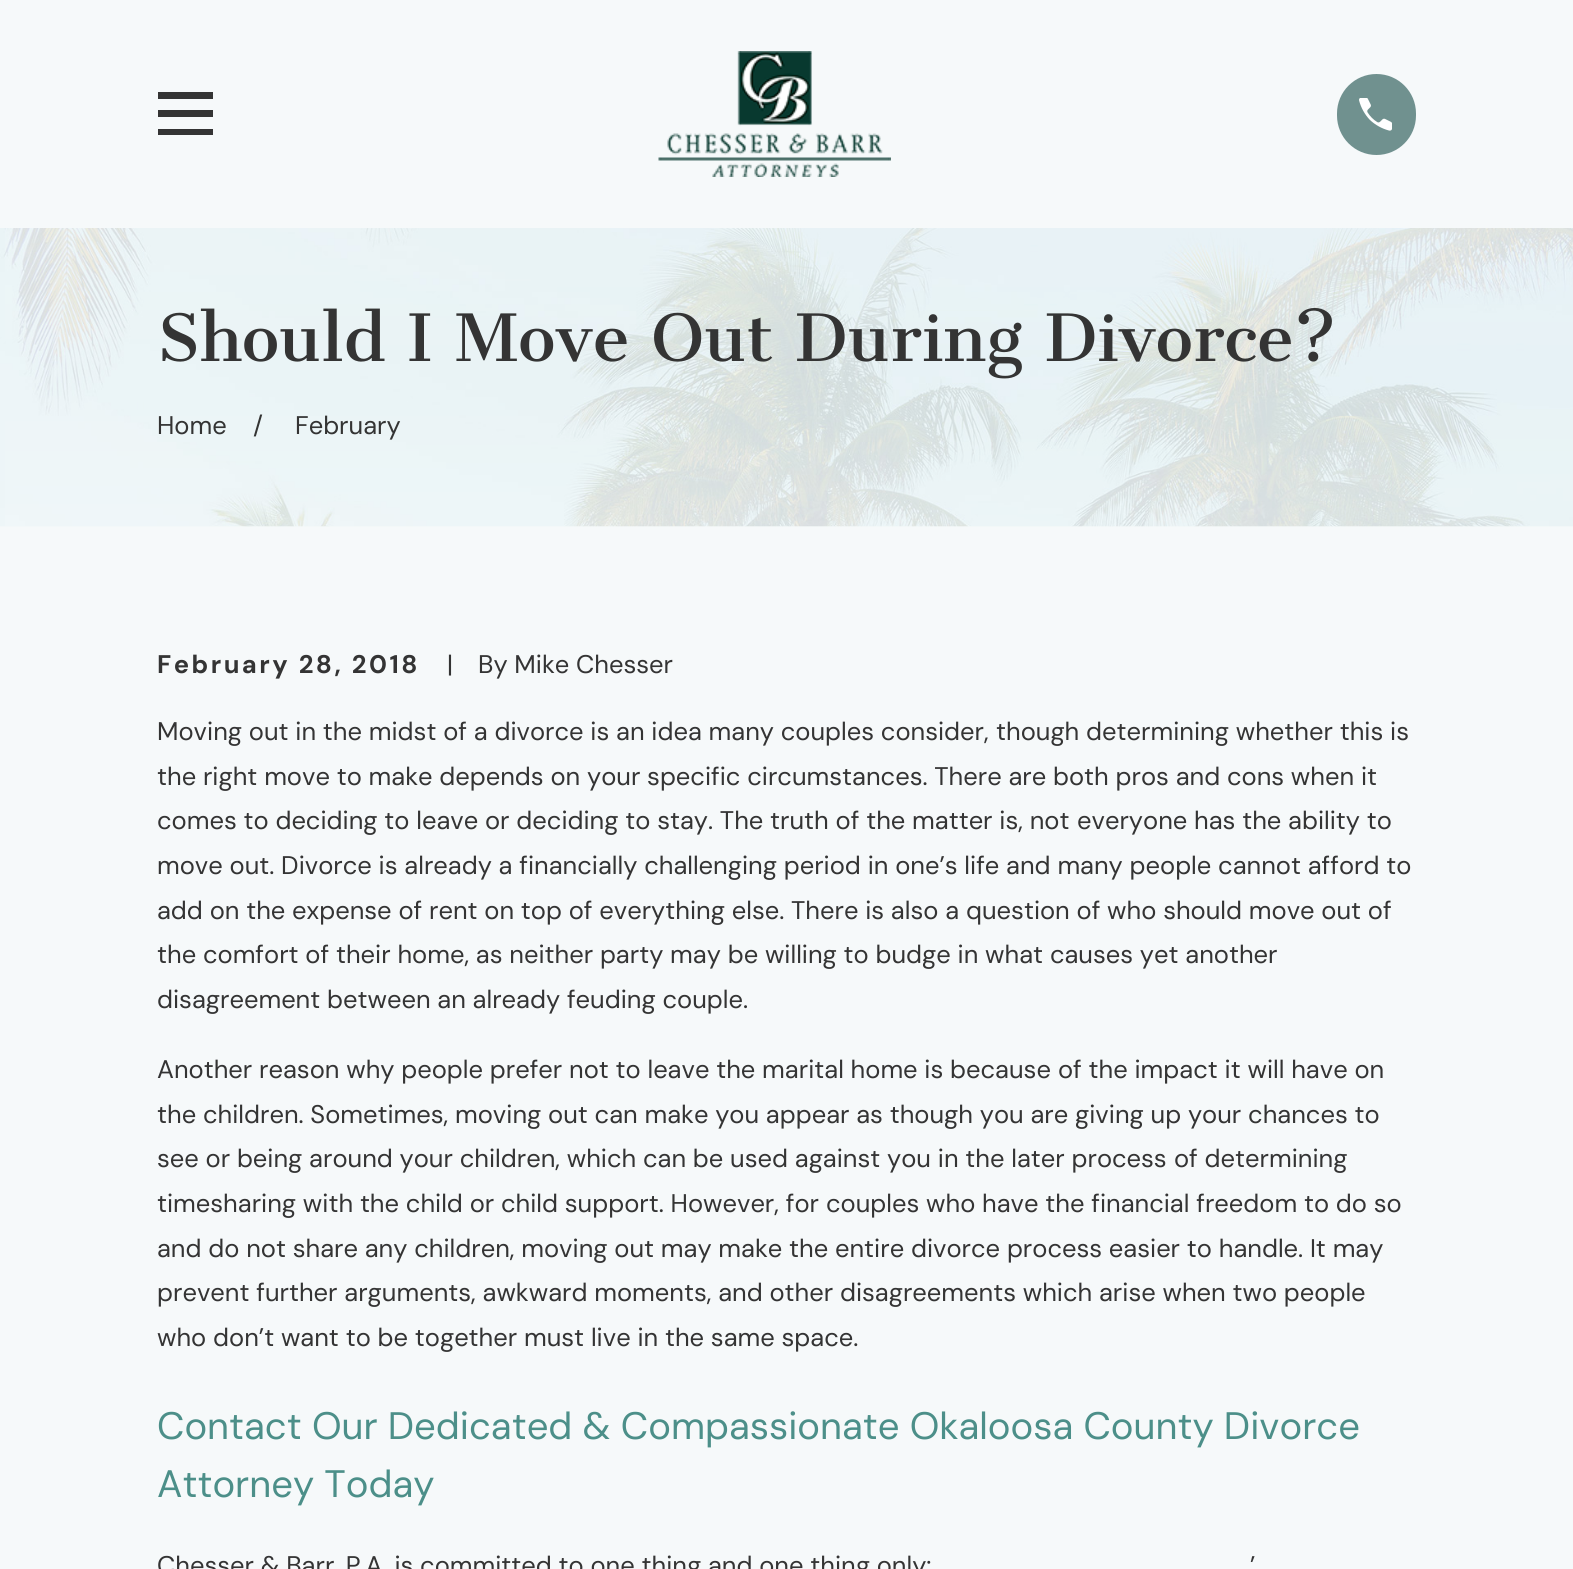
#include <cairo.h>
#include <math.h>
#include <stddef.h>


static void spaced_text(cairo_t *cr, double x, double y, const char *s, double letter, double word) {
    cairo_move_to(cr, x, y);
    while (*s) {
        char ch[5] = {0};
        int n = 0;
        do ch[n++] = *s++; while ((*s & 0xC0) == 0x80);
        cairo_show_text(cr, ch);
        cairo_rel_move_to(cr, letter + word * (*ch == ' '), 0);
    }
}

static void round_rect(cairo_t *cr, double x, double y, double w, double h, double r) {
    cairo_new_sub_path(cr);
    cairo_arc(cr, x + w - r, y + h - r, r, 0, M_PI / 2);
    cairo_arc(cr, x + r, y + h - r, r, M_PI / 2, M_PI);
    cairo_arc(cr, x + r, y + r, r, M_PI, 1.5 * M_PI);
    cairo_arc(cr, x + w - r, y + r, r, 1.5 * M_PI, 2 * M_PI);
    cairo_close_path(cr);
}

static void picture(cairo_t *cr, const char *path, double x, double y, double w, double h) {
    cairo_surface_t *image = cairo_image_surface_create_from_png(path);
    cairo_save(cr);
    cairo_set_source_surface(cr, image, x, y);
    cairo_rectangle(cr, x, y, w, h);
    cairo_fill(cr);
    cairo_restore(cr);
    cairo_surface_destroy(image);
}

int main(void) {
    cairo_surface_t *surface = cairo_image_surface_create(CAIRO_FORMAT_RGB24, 1573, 1569);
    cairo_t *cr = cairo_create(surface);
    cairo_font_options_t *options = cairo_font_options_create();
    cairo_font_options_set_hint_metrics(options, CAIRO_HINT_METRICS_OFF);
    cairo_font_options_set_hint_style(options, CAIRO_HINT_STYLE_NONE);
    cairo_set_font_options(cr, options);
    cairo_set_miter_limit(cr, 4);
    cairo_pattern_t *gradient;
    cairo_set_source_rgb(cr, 0.961, 0.976, 0.98);
    cairo_paint(cr);
    cairo_save(cr);
    cairo_rectangle(cr, 158, 86, 55, 57);
    cairo_clip(cr);
    cairo_set_source_rgb(cr, 0.204, 0.204, 0.204);
    cairo_new_path(cr);
    cairo_move_to(cr, 158, 92);
    cairo_line_to(cr, 158, 99);
    cairo_line_to(cr, 214, 99);
    cairo_line_to(cr, 214, 92);
    cairo_close_path(cr);
    cairo_move_to(cr, 158, 110);
    cairo_line_to(cr, 158, 117);
    cairo_line_to(cr, 214, 117);
    cairo_line_to(cr, 214, 110);
    cairo_close_path(cr);
    cairo_move_to(cr, 158, 129);
    cairo_line_to(cr, 158, 135);
    cairo_line_to(cr, 214, 135);
    cairo_line_to(cr, 214, 129);
    cairo_close_path(cr);
    cairo_fill(cr);
    cairo_restore(cr);
    picture(cr, "img1.png", 658, 51, 233, 126);
    cairo_set_source_rgb(cr, 0.439, 0.569, 0.561);
    round_rect(cr, 1337, 74, 79, 81, 39.5);
    cairo_fill(cr);
    picture(cr, "img2.png", 1359, 98, 33, 33);
    picture(cr, "img3.png", 0, 228, 1573, 299);
    gradient = cairo_pattern_create_linear(787, 527, 787, 228);
    cairo_pattern_add_color_stop_rgba(gradient, 0, 1, 1, 1, 0.1);
    cairo_pattern_add_color_stop_rgba(gradient, 0.5, 1, 1, 1, 0);
    cairo_pattern_add_color_stop_rgba(gradient, 1, 1, 1, 1, 0.1);
    cairo_set_source(cr, gradient);
    cairo_pattern_destroy(gradient);
    cairo_rectangle(cr, 5, 228, 1568, 298);
    cairo_fill(cr);
    cairo_select_font_face(cr, "Cantata One", CAIRO_FONT_SLANT_NORMAL, CAIRO_FONT_WEIGHT_NORMAL);
    cairo_set_font_size(cr, 63.75);
    cairo_set_source_rgb(cr, 0.204, 0.204, 0.204);
    cairo_move_to(cr, 157, 361);
    cairo_show_text(cr, "Should I Move Out During Divorce?");
    cairo_select_font_face(cr, "DM Sans", CAIRO_FONT_SLANT_NORMAL, CAIRO_FONT_WEIGHT_NORMAL);
    cairo_set_font_size(cr, 25.5);
    cairo_move_to(cr, 157, 434);
    cairo_show_text(cr, "Home");
    cairo_move_to(cr, 253, 434);
    cairo_show_text(cr, "/");
    cairo_move_to(cr, 295, 434);
    cairo_show_text(cr, "February");
    cairo_select_font_face(cr, "DM Sans", CAIRO_FONT_SLANT_NORMAL, CAIRO_FONT_WEIGHT_BOLD);
    spaced_text(cr, 157, 673, "February 28, 2018", 2.5, 0);
    cairo_select_font_face(cr, "DM Sans", CAIRO_FONT_SLANT_NORMAL, CAIRO_FONT_WEIGHT_NORMAL);
    cairo_move_to(cr, 447, 673);
    cairo_show_text(cr, "|");
    cairo_move_to(cr, 478, 673);
    cairo_show_text(cr, "By Mike Chesser");
    cairo_move_to(cr, 157, 740);
    cairo_show_text(cr, "Moving out in the midst of a divorce is an idea many couples consider,");
    cairo_move_to(cr, 996, 740);
    cairo_show_text(cr, "though determining whether this is");
    cairo_move_to(cr, 157, 785);
    cairo_show_text(cr, "the right move to make depends on your specific circumstances. There are both pros and cons when it");
    cairo_move_to(cr, 157, 829);
    cairo_show_text(cr, "comes to deciding to leave or deciding to stay. The truth of the matter is, not");
    cairo_move_to(cr, 1077, 829);
    cairo_show_text(cr, "everyone has the ability to");
    cairo_move_to(cr, 157, 874);
    cairo_show_text(cr, "move out. Divorce is already a financially challenging period in one’s life and many people cannot afford to");
    cairo_move_to(cr, 157, 919);
    cairo_show_text(cr, "add on the expense of rent on top of everything else. There is also a");
    cairo_move_to(cr, 966, 919);
    cairo_show_text(cr, "question of who should move out of");
    cairo_move_to(cr, 157, 963);
    cairo_show_text(cr, "the comfort of their home, as neither party may be willing to budge in what causes yet another");
    cairo_move_to(cr, 157, 1008);
    cairo_show_text(cr, "disagreement between an already feuding couple.");
    cairo_move_to(cr, 157, 1078);
    cairo_show_text(cr, "Another reason why people prefer not to leave the marital home is because");
    cairo_move_to(cr, 1058, 1078);
    cairo_show_text(cr, "of the impact it will have on");
    cairo_move_to(cr, 157, 1123);
    cairo_show_text(cr, "the children. Sometimes, moving out can make you appear as though you are giving up your chances to");
    cairo_move_to(cr, 157, 1167);
    cairo_show_text(cr, "see or being around your children, which can be used against you in the later process");
    cairo_move_to(cr, 1174, 1167);
    cairo_show_text(cr, "of determining");
    cairo_move_to(cr, 157, 1212);
    cairo_show_text(cr, "timesharing with the child or child support. However, for");
    cairo_move_to(cr, 826, 1212);
    cairo_show_text(cr, "couples who have the financial freedom to do so");
    cairo_move_to(cr, 157, 1257);
    cairo_show_text(cr, "and do not share any children, moving out may make the entire divorce process easier to handle. It may");
    cairo_move_to(cr, 157, 1301);
    cairo_show_text(cr, "prevent further arguments, awkward moments, and other disagreements which");
    cairo_move_to(cr, 1099, 1301);
    cairo_show_text(cr, "arise when two people");
    cairo_move_to(cr, 157, 1346);
    cairo_show_text(cr, "who don’t want to be together must live in the same space.");
    cairo_set_font_size(cr, 38.25);
    cairo_set_source_rgb(cr, 0.298, 0.561, 0.537);
    cairo_move_to(cr, 157, 1439);
    cairo_show_text(cr, "Contact Our Dedicated & Compassionate Okaloosa County Divorce");
    cairo_move_to(cr, 157, 1497);
    cairo_show_text(cr, "Attorney Today");
    cairo_set_font_size(cr, 25.5);
    cairo_set_source_rgb(cr, 0.204, 0.204, 0.204);
    cairo_move_to(cr, 157, 1574);
    cairo_show_text(cr, "Chesser & Barr, P.A. is committed to one thing and one thing only:");
    cairo_move_to(cr, 1250, 1574);
    cairo_show_text(cr, "’");
    cairo_surface_write_to_png(surface, "page.png");
    cairo_font_options_destroy(options);
    cairo_destroy(cr);
    cairo_surface_destroy(surface);
    return 0;
}
